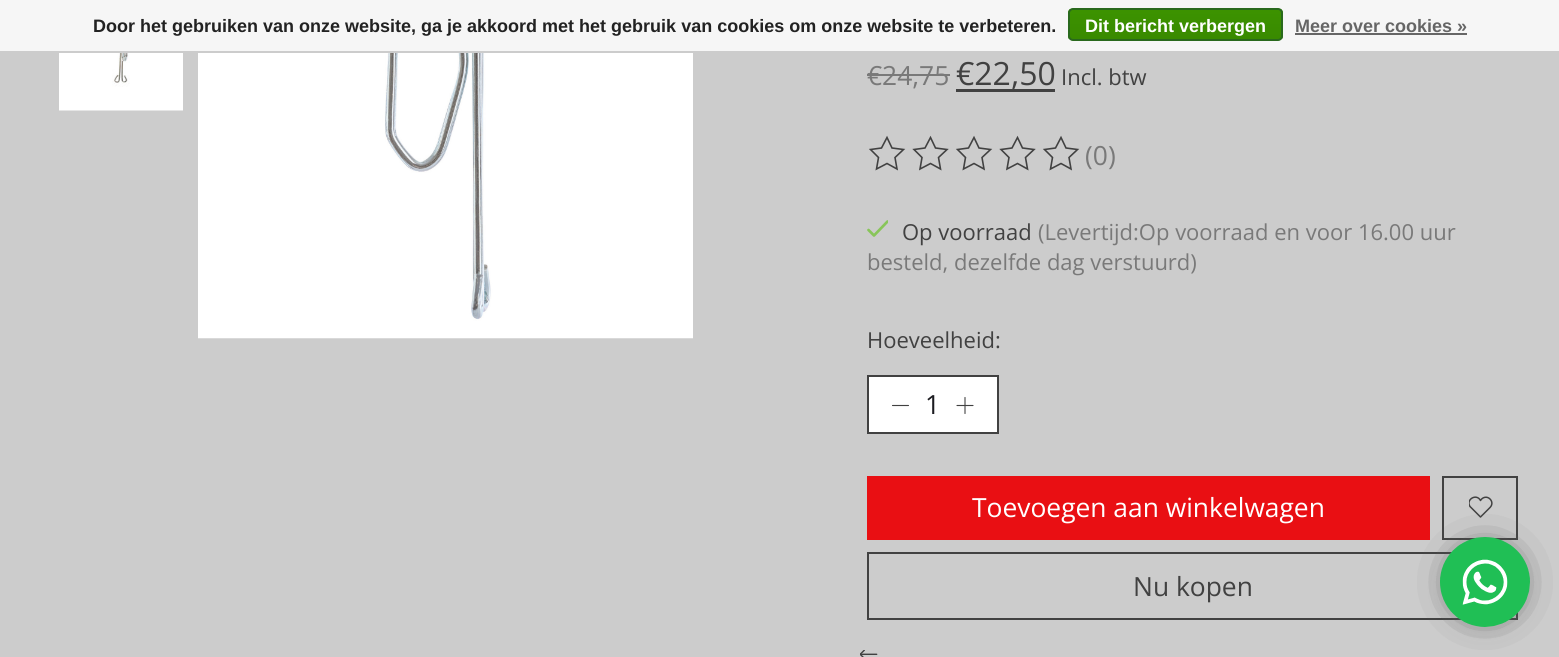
#include <cairo.h>
#include <math.h>
#include <stddef.h>


static void round_rect(cairo_t *cr, double x, double y, double w, double h, double r) {
    cairo_new_sub_path(cr);
    cairo_arc(cr, x + w - r, y + h - r, r, 0, M_PI / 2);
    cairo_arc(cr, x + r, y + h - r, r, M_PI / 2, M_PI);
    cairo_arc(cr, x + r, y + r, r, M_PI, 1.5 * M_PI);
    cairo_arc(cr, x + w - r, y + r, r, 1.5 * M_PI, 2 * M_PI);
    cairo_close_path(cr);
}

static void picture(cairo_t *cr, const char *path, double x, double y, double w, double h) {
    cairo_surface_t *image = cairo_image_surface_create_from_png(path);
    cairo_save(cr);
    cairo_set_source_surface(cr, image, x, y);
    cairo_rectangle(cr, x, y, w, h);
    cairo_fill(cr);
    cairo_restore(cr);
    cairo_surface_destroy(image);
}

int main(void) {
    cairo_surface_t *surface = cairo_image_surface_create(CAIRO_FORMAT_RGB24, 1559, 657);
    cairo_t *cr = cairo_create(surface);
    cairo_font_options_t *options = cairo_font_options_create();
    cairo_font_options_set_hint_metrics(options, CAIRO_HINT_METRICS_OFF);
    cairo_font_options_set_hint_style(options, CAIRO_HINT_STYLE_NONE);
    cairo_set_font_options(cr, options);
    cairo_set_miter_limit(cr, 4);
    cairo_pattern_t *gradient;
    cairo_set_source_rgb(cr, 0.8, 0.8, 0.8);
    cairo_paint(cr);
    cairo_set_source_rgb(cr, 0.961, 0.961, 0.961);
    cairo_rectangle(cr, 0, 0, 1559, 51);
    cairo_fill(cr);
    cairo_select_font_face(cr, "Liberation Sans", CAIRO_FONT_SLANT_NORMAL, CAIRO_FONT_WEIGHT_BOLD);
    cairo_set_font_size(cr, 18);
    cairo_set_source_rgb(cr, 0.133, 0.133, 0.133);
    cairo_move_to(cr, 93, 32);
    cairo_show_text(cr, "Door het gebruiken van onze website, ga je akkoord met het gebruik van cookies om onze website te verbeteren.");
    cairo_save(cr);
    round_rect(cr, 1068, 8, 215, 33, 5);
    cairo_clip(cr);
    gradient = cairo_pattern_create_linear(1175, 9, 1175, 39);
    cairo_pattern_add_color_stop_rgba(gradient, 0, 0.235, 0.576, 0, 1);
    cairo_pattern_add_color_stop_rgba(gradient, 1, 0.224, 0.541, 0, 1);
    cairo_set_source(cr, gradient);
    cairo_pattern_destroy(gradient);
    cairo_rectangle(cr, 1068, 9, 215, 30);
    cairo_fill(cr);
    cairo_restore(cr);
    round_rect(cr, 1069, 9, 213, 31, 4);
    cairo_set_source_rgb(cr, 0.161, 0.412, 0.114);
    cairo_stroke(cr);
    cairo_set_source_rgb(cr, 1, 1, 1);
    cairo_move_to(cr, 1085, 32);
    cairo_show_text(cr, "Dit bericht verbergen");
    cairo_set_source_rgb(cr, 0.4, 0.4, 0.4);
    cairo_move_to(cr, 1295, 32);
    cairo_show_text(cr, "Meer over cookies »");
    cairo_rectangle(cr, 1295, 33, 172, 2);
    cairo_fill(cr);
    picture(cr, "img1.png", 59, 53, 124, 58);
    picture(cr, "img2.png", 198, 53, 495, 286);
    cairo_select_font_face(cr, "Open Sans", CAIRO_FONT_SLANT_NORMAL, CAIRO_FONT_WEIGHT_NORMAL);
    cairo_set_font_size(cr, 26.4);
    cairo_set_source_rgb(cr, 0.475, 0.475, 0.475);
    cairo_move_to(cr, 867, 85);
    cairo_show_text(cr, "€24,75");
    cairo_rectangle(cr, 867, 74, 83, 2);
    cairo_fill(cr);
    cairo_set_source_rgb(cr, 0.255, 0.255, 0.255);
    cairo_rectangle(cr, 956, 89, 99, 3);
    cairo_fill(cr);
    cairo_set_font_size(cr, 32);
    cairo_move_to(cr, 956, 85);
    cairo_show_text(cr, "€22,50");
    cairo_set_font_size(cr, 22);
    cairo_move_to(cr, 1061, 85);
    cairo_show_text(cr, "Incl. btw");
    cairo_new_path(cr);
    cairo_move_to(cr, 887, 137.5);
    cairo_line_to(cr, 892, 148);
    cairo_line_to(cr, 903.5, 149.5);
    cairo_line_to(cr, 895, 157.5);
    cairo_line_to(cr, 897, 169);
    cairo_line_to(cr, 887, 163.5);
    cairo_line_to(cr, 876.5, 169);
    cairo_line_to(cr, 878.5, 157.5);
    cairo_line_to(cr, 870.5, 149.5);
    cairo_line_to(cr, 881.5, 148);
    cairo_close_path(cr);
    cairo_set_line_width(cr, 1.6);
    cairo_stroke(cr);
    cairo_new_path(cr);
    cairo_move_to(cr, 930.5, 137.5);
    cairo_line_to(cr, 935.5, 148);
    cairo_line_to(cr, 947, 149.5);
    cairo_line_to(cr, 938.5, 157.5);
    cairo_line_to(cr, 940.5, 169);
    cairo_line_to(cr, 930.5, 163.5);
    cairo_line_to(cr, 920, 169);
    cairo_line_to(cr, 922, 157.5);
    cairo_line_to(cr, 914, 149.5);
    cairo_line_to(cr, 925, 148);
    cairo_close_path(cr);
    cairo_stroke(cr);
    cairo_new_path(cr);
    cairo_move_to(cr, 974, 137.5);
    cairo_line_to(cr, 979, 148);
    cairo_line_to(cr, 990.5, 149.5);
    cairo_line_to(cr, 982, 157.5);
    cairo_line_to(cr, 984, 169);
    cairo_line_to(cr, 974, 163.5);
    cairo_line_to(cr, 963.5, 169);
    cairo_line_to(cr, 965.5, 157.5);
    cairo_line_to(cr, 957.5, 149.5);
    cairo_line_to(cr, 968.5, 148);
    cairo_close_path(cr);
    cairo_stroke(cr);
    cairo_new_path(cr);
    cairo_move_to(cr, 1017.5, 137.5);
    cairo_line_to(cr, 1022.5, 148);
    cairo_line_to(cr, 1034, 149.5);
    cairo_line_to(cr, 1025.5, 157.5);
    cairo_line_to(cr, 1027.5, 169);
    cairo_line_to(cr, 1017.5, 163.5);
    cairo_line_to(cr, 1007, 169);
    cairo_line_to(cr, 1009, 157.5);
    cairo_line_to(cr, 1001, 149.5);
    cairo_line_to(cr, 1012, 148);
    cairo_close_path(cr);
    cairo_stroke(cr);
    cairo_new_path(cr);
    cairo_move_to(cr, 1061, 137.5);
    cairo_line_to(cr, 1066, 148);
    cairo_line_to(cr, 1077.5, 149.5);
    cairo_line_to(cr, 1069, 157.5);
    cairo_line_to(cr, 1071, 169);
    cairo_line_to(cr, 1061, 163.5);
    cairo_line_to(cr, 1050.5, 169);
    cairo_line_to(cr, 1052.5, 157.5);
    cairo_line_to(cr, 1044.5, 149.5);
    cairo_line_to(cr, 1055.5, 148);
    cairo_close_path(cr);
    cairo_stroke(cr);
    cairo_set_font_size(cr, 26.4);
    cairo_set_source_rgb(cr, 0.475, 0.475, 0.475);
    cairo_move_to(cr, 1085, 165);
    cairo_show_text(cr, "(0)");
    cairo_save(cr);
    cairo_rectangle(cr, 867, 218, 21, 22);
    cairo_clip(cr);
    cairo_new_path(cr);
    cairo_move_to(cr, 868.5, 230);
    cairo_line_to(cr, 874, 235.5);
    cairo_line_to(cr, 887.5, 221.5);
    cairo_set_source_rgb(cr, 0.533, 0.773, 0.349);
    cairo_set_line_width(cr, 2.7);
    cairo_set_line_cap(cr, CAIRO_LINE_CAP_ROUND);
    cairo_set_line_join(cr, CAIRO_LINE_JOIN_ROUND);
    cairo_stroke(cr);
    cairo_restore(cr);
    cairo_set_font_size(cr, 22);
    cairo_set_source_rgb(cr, 0.255, 0.255, 0.255);
    cairo_move_to(cr, 902, 240);
    cairo_show_text(cr, "Op voorraad");
    cairo_set_source_rgb(cr, 0.475, 0.475, 0.475);
    cairo_move_to(cr, 1038, 240);
    cairo_show_text(cr, "(Levertijd:Op voorraad en voor 16.00 uur");
    cairo_move_to(cr, 867, 270);
    cairo_show_text(cr, "besteld, dezelfde dag verstuurd)");
    cairo_set_source_rgb(cr, 0.255, 0.255, 0.255);
    cairo_move_to(cr, 867, 348);
    cairo_show_text(cr, "Hoeveelheid:");
    cairo_set_source_rgb(cr, 1, 1, 1);
    cairo_rectangle(cr, 868, 376, 130, 57);
    cairo_fill_preserve(cr);
    cairo_set_source_rgb(cr, 0.255, 0.255, 0.255);
    cairo_set_line_width(cr, 2);
    cairo_stroke(cr);
    cairo_new_path(cr);
    cairo_move_to(cr, 892.5, 405.5);
    cairo_line_to(cr, 908.5, 405.5);
    cairo_set_line_width(cr, 1.1);
    cairo_set_line_cap(cr, CAIRO_LINE_CAP_ROUND);
    cairo_set_line_join(cr, CAIRO_LINE_JOIN_ROUND);
    cairo_stroke(cr);
    cairo_set_font_size(cr, 26.4);
    cairo_set_source_rgb(cr, 0.11, 0.11, 0.129);
    cairo_move_to(cr, 925, 414);
    cairo_show_text(cr, "1");
    cairo_new_path(cr);
    cairo_move_to(cr, 965, 397.5);
    cairo_line_to(cr, 965, 413.5);
    cairo_move_to(cr, 957, 405.5);
    cairo_line_to(cr, 973, 405.5);
    cairo_set_source_rgb(cr, 0.255, 0.255, 0.255);
    cairo_stroke(cr);
    cairo_set_source_rgb(cr, 0.914, 0.059, 0.075);
    cairo_rectangle(cr, 867, 476, 563, 64);
    cairo_fill(cr);
    cairo_set_source_rgb(cr, 1, 1, 1);
    cairo_move_to(cr, 972, 517);
    cairo_show_text(cr, "Toevoegen aan winkelwagen");
    cairo_rectangle(cr, 1443, 477, 74, 62);
    cairo_set_source_rgb(cr, 0.255, 0.255, 0.255);
    cairo_set_line_width(cr, 2);
    cairo_set_line_cap(cr, CAIRO_LINE_CAP_BUTT);
    cairo_set_line_join(cr, CAIRO_LINE_JOIN_MITER);
    cairo_stroke(cr);
    cairo_save(cr);
    cairo_rectangle(cr, 1469, 495, 24, 24);
    cairo_clip(cr);
    cairo_new_path(cr);
    cairo_move_to(cr, 1490, 499);
    cairo_curve_to(cr, 1487, 496, 1482.5, 497, 1480.5, 500.5);
    cairo_curve_to(cr, 1476.5, 493, 1465.5, 499.5, 1470, 506.5);
    cairo_line_to(cr, 1480.5, 517);
    cairo_line_to(cr, 1490, 507.5);
    cairo_curve_to(cr, 1492.5, 505, 1492.5, 501.5, 1490, 499);
    cairo_close_path(cr);
    cairo_set_line_width(cr, 1.5);
    cairo_set_line_cap(cr, CAIRO_LINE_CAP_ROUND);
    cairo_set_line_join(cr, CAIRO_LINE_JOIN_ROUND);
    cairo_stroke(cr);
    cairo_restore(cr);
    cairo_rectangle(cr, 868, 553, 649, 66);
    cairo_stroke(cr);
    cairo_move_to(cr, 1133, 596);
    cairo_show_text(cr, "Nu kopen");
    picture(cr, "img3.png", 860, 650, 18, 7);
    picture(cr, "img4.png", 1417, 514, 136, 136);
    cairo_surface_write_to_png(surface, "page.png");
    cairo_font_options_destroy(options);
    cairo_destroy(cr);
    cairo_surface_destroy(surface);
    return 0;
}
